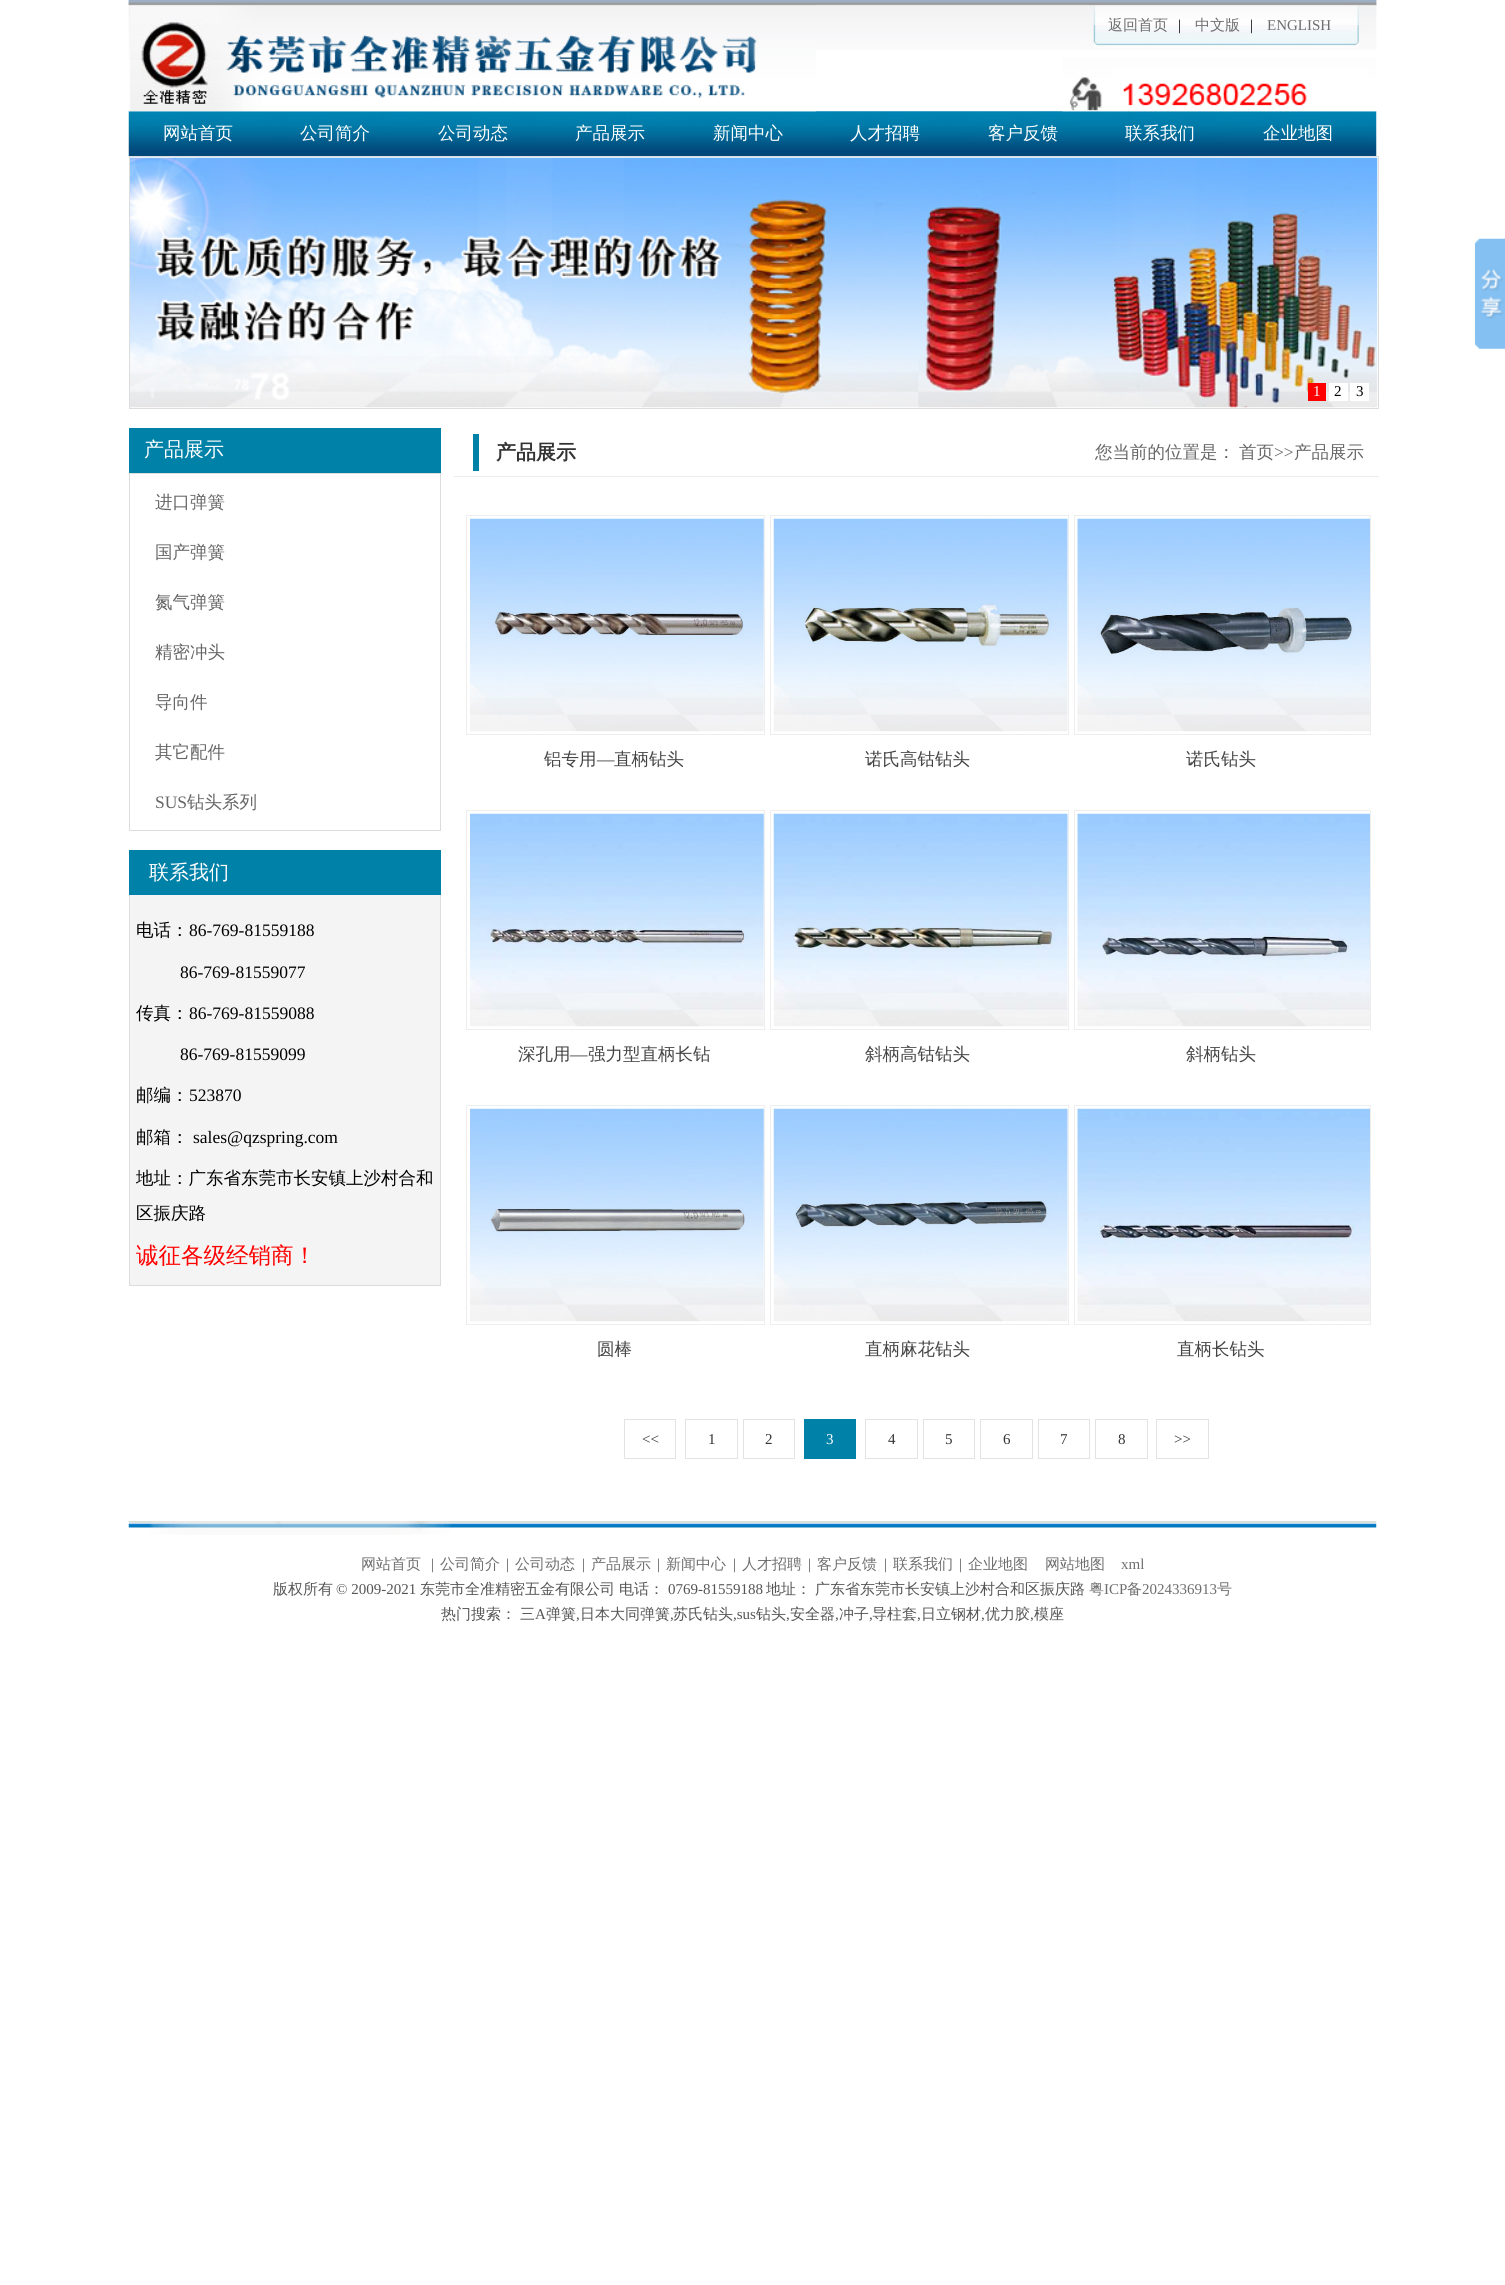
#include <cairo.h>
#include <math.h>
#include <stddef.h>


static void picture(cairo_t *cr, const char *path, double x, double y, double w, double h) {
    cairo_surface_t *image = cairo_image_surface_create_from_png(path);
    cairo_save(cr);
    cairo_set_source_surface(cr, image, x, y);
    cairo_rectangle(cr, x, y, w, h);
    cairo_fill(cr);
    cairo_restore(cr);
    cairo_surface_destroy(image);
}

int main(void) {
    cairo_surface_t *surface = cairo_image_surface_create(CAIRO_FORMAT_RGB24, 1505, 2285);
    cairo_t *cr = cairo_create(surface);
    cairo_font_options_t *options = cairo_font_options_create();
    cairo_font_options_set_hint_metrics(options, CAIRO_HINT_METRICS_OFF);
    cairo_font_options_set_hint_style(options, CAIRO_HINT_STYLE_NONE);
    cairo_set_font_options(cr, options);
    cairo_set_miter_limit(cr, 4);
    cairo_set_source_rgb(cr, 1, 1, 1);
    cairo_paint(cr);
    picture(cr, "img1.png", 128, 0, 1249, 50);
    picture(cr, "img5.png", 128, 111, 1249, 46);
    picture(cr, "img2.png", 128, 0, 689, 112);
    picture(cr, "img3.png", 1089, 0, 288, 48);
    cairo_select_font_face(cr, "WenQuanYi Zen Hei Medium", CAIRO_FONT_SLANT_NORMAL, CAIRO_FONT_WEIGHT_NORMAL);
    cairo_set_font_size(cr, 15);
    cairo_set_source_rgb(cr, 0.431, 0.431, 0.431);
    cairo_move_to(cr, 1108, 30);
    cairo_show_text(cr, "返回首页");
    cairo_select_font_face(cr, "Liberation Serif", CAIRO_FONT_SLANT_NORMAL, CAIRO_FONT_WEIGHT_NORMAL);
    cairo_set_source_rgb(cr, 0, 0, 0);
    cairo_move_to(cr, 1178, 30);
    cairo_show_text(cr, "|");
    cairo_select_font_face(cr, "WenQuanYi Zen Hei Medium", CAIRO_FONT_SLANT_NORMAL, CAIRO_FONT_WEIGHT_NORMAL);
    cairo_set_source_rgb(cr, 0.431, 0.431, 0.431);
    cairo_move_to(cr, 1195, 30);
    cairo_show_text(cr, "中文版");
    cairo_select_font_face(cr, "Liberation Serif", CAIRO_FONT_SLANT_NORMAL, CAIRO_FONT_WEIGHT_NORMAL);
    cairo_set_source_rgb(cr, 0, 0, 0);
    cairo_move_to(cr, 1250, 30);
    cairo_show_text(cr, "|");
    cairo_set_source_rgb(cr, 0.431, 0.431, 0.431);
    cairo_move_to(cr, 1267, 30);
    cairo_show_text(cr, "ENGLISH");
    picture(cr, "img4.png", 1062, 58, 314, 54);
    cairo_select_font_face(cr, "WenQuanYi Zen Hei Medium", CAIRO_FONT_SLANT_NORMAL, CAIRO_FONT_WEIGHT_NORMAL);
    cairo_set_font_size(cr, 17.5);
    cairo_set_source_rgb(cr, 1, 1, 1);
    cairo_move_to(cr, 163, 139);
    cairo_show_text(cr, "网站首页");
    cairo_move_to(cr, 300, 139);
    cairo_show_text(cr, "公司简介");
    cairo_move_to(cr, 438, 139);
    cairo_show_text(cr, "公司动态");
    cairo_move_to(cr, 575, 139);
    cairo_show_text(cr, "产品展示");
    cairo_move_to(cr, 713, 139);
    cairo_show_text(cr, "新闻中心");
    cairo_move_to(cr, 850, 139);
    cairo_show_text(cr, "人才招聘");
    cairo_move_to(cr, 988, 139);
    cairo_show_text(cr, "客户反馈");
    cairo_move_to(cr, 1125, 139);
    cairo_show_text(cr, "联系我们");
    cairo_move_to(cr, 1263, 139);
    cairo_show_text(cr, "企业地图");
    cairo_rectangle(cr, 129.5, 156.5, 1249, 252);
    cairo_set_source_rgb(cr, 0.867, 0.867, 0.867);
    cairo_set_line_width(cr, 1);
    cairo_stroke(cr);
    picture(cr, "img6.png", 130, 157, 1248, 251);
    cairo_set_source_rgb(cr, 1, 0, 0);
    cairo_rectangle(cr, 1308, 383, 18, 18);
    cairo_fill(cr);
    cairo_select_font_face(cr, "Liberation Serif", CAIRO_FONT_SLANT_NORMAL, CAIRO_FONT_WEIGHT_NORMAL);
    cairo_set_font_size(cr, 15);
    cairo_set_source_rgb(cr, 1, 1, 1);
    cairo_move_to(cr, 1313, 396);
    cairo_show_text(cr, "1");
    cairo_rectangle(cr, 1329, 383, 19, 18);
    cairo_fill(cr);
    cairo_set_source_rgb(cr, 0, 0, 0);
    cairo_move_to(cr, 1334, 396);
    cairo_show_text(cr, "2");
    cairo_set_source_rgb(cr, 1, 1, 1);
    cairo_rectangle(cr, 1350, 383, 19, 18);
    cairo_fill(cr);
    cairo_set_source_rgb(cr, 0, 0, 0);
    cairo_move_to(cr, 1356, 396);
    cairo_show_text(cr, "3");
    cairo_set_source_rgb(cr, 0, 0.506, 0.659);
    cairo_rectangle(cr, 129, 428, 312, 45);
    cairo_fill(cr);
    cairo_select_font_face(cr, "WenQuanYi Zen Hei Medium", CAIRO_FONT_SLANT_NORMAL, CAIRO_FONT_WEIGHT_NORMAL);
    cairo_set_font_size(cr, 20);
    cairo_set_source_rgb(cr, 1, 1, 1);
    cairo_move_to(cr, 144, 456);
    cairo_show_text(cr, "产品展示");
    cairo_rectangle(cr, 129.5, 473.5, 311, 357);
    cairo_set_source_rgb(cr, 0.863, 0.863, 0.863);
    cairo_stroke(cr);
    cairo_set_font_size(cr, 17.5);
    cairo_set_source_rgb(cr, 0.4, 0.4, 0.4);
    cairo_move_to(cr, 155, 508);
    cairo_show_text(cr, "进口弹簧");
    cairo_move_to(cr, 155, 558);
    cairo_show_text(cr, "国产弹簧");
    cairo_move_to(cr, 155, 608);
    cairo_show_text(cr, "氮气弹簧");
    cairo_move_to(cr, 155, 658);
    cairo_show_text(cr, "精密冲头");
    cairo_move_to(cr, 155, 708);
    cairo_show_text(cr, "导向件");
    cairo_move_to(cr, 155, 758);
    cairo_show_text(cr, "其它配件");
    cairo_select_font_face(cr, "Liberation Serif", CAIRO_FONT_SLANT_NORMAL, CAIRO_FONT_WEIGHT_NORMAL);
    cairo_move_to(cr, 155, 808);
    cairo_show_text(cr, "SUS");
    cairo_select_font_face(cr, "WenQuanYi Zen Hei Medium", CAIRO_FONT_SLANT_NORMAL, CAIRO_FONT_WEIGHT_NORMAL);
    cairo_move_to(cr, 187, 808);
    cairo_show_text(cr, "钻头系列");
    cairo_set_source_rgb(cr, 0, 0.506, 0.659);
    cairo_rectangle(cr, 129, 850, 312, 45);
    cairo_fill(cr);
    cairo_set_font_size(cr, 20);
    cairo_set_source_rgb(cr, 1, 1, 1);
    cairo_move_to(cr, 149, 879);
    cairo_show_text(cr, "联系我们");
    cairo_set_source_rgb(cr, 0.957, 0.957, 0.957);
    cairo_rectangle(cr, 130, 895, 310, 390);
    cairo_fill(cr);
    cairo_set_source_rgb(cr, 0.863, 0.863, 0.863);
    cairo_rectangle(cr, 440, 895, 1, 391);
    cairo_fill(cr);
    cairo_rectangle(cr, 129, 1285, 312, 1);
    cairo_fill(cr);
    cairo_rectangle(cr, 129, 895, 1, 391);
    cairo_fill(cr);
    cairo_set_font_size(cr, 17.5);
    cairo_set_source_rgb(cr, 0, 0, 0);
    cairo_move_to(cr, 136, 936);
    cairo_show_text(cr, "电话：");
    cairo_select_font_face(cr, "Liberation Serif", CAIRO_FONT_SLANT_NORMAL, CAIRO_FONT_WEIGHT_NORMAL);
    cairo_move_to(cr, 189, 936);
    cairo_show_text(cr, "86-769-81559188");
    cairo_move_to(cr, 180, 978);
    cairo_show_text(cr, "86-769-81559077");
    cairo_select_font_face(cr, "WenQuanYi Zen Hei Medium", CAIRO_FONT_SLANT_NORMAL, CAIRO_FONT_WEIGHT_NORMAL);
    cairo_move_to(cr, 136, 1019);
    cairo_show_text(cr, "传真：");
    cairo_select_font_face(cr, "Liberation Serif", CAIRO_FONT_SLANT_NORMAL, CAIRO_FONT_WEIGHT_NORMAL);
    cairo_move_to(cr, 189, 1019);
    cairo_show_text(cr, "86-769-81559088");
    cairo_move_to(cr, 180, 1060);
    cairo_show_text(cr, "86-769-81559099");
    cairo_select_font_face(cr, "WenQuanYi Zen Hei Medium", CAIRO_FONT_SLANT_NORMAL, CAIRO_FONT_WEIGHT_NORMAL);
    cairo_move_to(cr, 136, 1101);
    cairo_show_text(cr, "邮编：");
    cairo_select_font_face(cr, "Liberation Serif", CAIRO_FONT_SLANT_NORMAL, CAIRO_FONT_WEIGHT_NORMAL);
    cairo_move_to(cr, 189, 1101);
    cairo_show_text(cr, "523870");
    cairo_select_font_face(cr, "WenQuanYi Zen Hei Medium", CAIRO_FONT_SLANT_NORMAL, CAIRO_FONT_WEIGHT_NORMAL);
    cairo_move_to(cr, 136, 1143);
    cairo_show_text(cr, "邮箱：");
    cairo_select_font_face(cr, "Liberation Serif", CAIRO_FONT_SLANT_NORMAL, CAIRO_FONT_WEIGHT_NORMAL);
    cairo_move_to(cr, 193, 1143);
    cairo_show_text(cr, "sales@qzspring.com");
    cairo_select_font_face(cr, "WenQuanYi Zen Hei Medium", CAIRO_FONT_SLANT_NORMAL, CAIRO_FONT_WEIGHT_NORMAL);
    cairo_move_to(cr, 136, 1184);
    cairo_show_text(cr, "地址：广东省东莞市长安镇上沙村合和");
    cairo_move_to(cr, 136, 1219);
    cairo_show_text(cr, "区振庆路");
    cairo_set_font_size(cr, 22.5);
    cairo_set_source_rgb(cr, 1, 0, 0);
    cairo_move_to(cr, 136, 1263);
    cairo_show_text(cr, "诚征各级经销商！");
    cairo_set_source_rgb(cr, 0.925, 0.925, 0.925);
    cairo_rectangle(cr, 454, 476, 925, 1);
    cairo_fill(cr);
    cairo_set_source_rgb(cr, 0, 0.506, 0.659);
    cairo_rectangle(cr, 473, 434, 6, 37);
    cairo_fill(cr);
    cairo_select_font_face(cr, "WenQuanYi Zen Hei", CAIRO_FONT_SLANT_NORMAL, CAIRO_FONT_WEIGHT_BOLD);
    cairo_set_font_size(cr, 20);
    cairo_set_source_rgb(cr, 0.2, 0.2, 0.2);
    cairo_move_to(cr, 496, 459);
    cairo_show_text(cr, "产品展示");
    cairo_select_font_face(cr, "WenQuanYi Zen Hei Medium", CAIRO_FONT_SLANT_NORMAL, CAIRO_FONT_WEIGHT_NORMAL);
    cairo_set_font_size(cr, 17.5);
    cairo_set_source_rgb(cr, 0.4, 0.4, 0.4);
    cairo_move_to(cr, 1095, 458);
    cairo_show_text(cr, "您当前的位置是：");
    cairo_move_to(cr, 1239, 458);
    cairo_show_text(cr, "首页");
    cairo_select_font_face(cr, "Liberation Serif", CAIRO_FONT_SLANT_NORMAL, CAIRO_FONT_WEIGHT_NORMAL);
    cairo_move_to(cr, 1274, 458);
    cairo_show_text(cr, ">>");
    cairo_select_font_face(cr, "WenQuanYi Zen Hei Medium", CAIRO_FONT_SLANT_NORMAL, CAIRO_FONT_WEIGHT_NORMAL);
    cairo_move_to(cr, 1294, 458);
    cairo_show_text(cr, "产品展示");
    cairo_rectangle(cr, 466.5, 515.5, 298, 219);
    cairo_set_source_rgb(cr, 0.933, 0.933, 0.933);
    cairo_stroke(cr);
    picture(cr, "img7.png", 470, 518, 294, 214);
    cairo_set_source_rgb(cr, 0.267, 0.267, 0.267);
    cairo_move_to(cr, 544, 765);
    cairo_show_text(cr, "铝专用");
    cairo_select_font_face(cr, "Liberation Serif", CAIRO_FONT_SLANT_NORMAL, CAIRO_FONT_WEIGHT_NORMAL);
    cairo_move_to(cr, 597, 765);
    cairo_show_text(cr, "—");
    cairo_select_font_face(cr, "WenQuanYi Zen Hei Medium", CAIRO_FONT_SLANT_NORMAL, CAIRO_FONT_WEIGHT_NORMAL);
    cairo_move_to(cr, 614, 765);
    cairo_show_text(cr, "直柄钻头");
    cairo_rectangle(cr, 770.5, 515.5, 298, 219);
    cairo_set_source_rgb(cr, 0.933, 0.933, 0.933);
    cairo_stroke(cr);
    picture(cr, "img8.png", 773, 518, 295, 214);
    cairo_set_source_rgb(cr, 0.267, 0.267, 0.267);
    cairo_move_to(cr, 865, 765);
    cairo_show_text(cr, "诺氏高钴钻头");
    cairo_rectangle(cr, 1074.5, 515.5, 296, 219);
    cairo_set_source_rgb(cr, 0.933, 0.933, 0.933);
    cairo_stroke(cr);
    picture(cr, "img9.png", 1077, 518, 293, 214);
    cairo_set_source_rgb(cr, 0.267, 0.267, 0.267);
    cairo_move_to(cr, 1186, 765);
    cairo_show_text(cr, "诺氏钻头");
    cairo_rectangle(cr, 466.5, 810.5, 298, 219);
    cairo_set_source_rgb(cr, 0.933, 0.933, 0.933);
    cairo_stroke(cr);
    picture(cr, "img10.png", 470, 813, 294, 214);
    cairo_set_source_rgb(cr, 0.267, 0.267, 0.267);
    cairo_move_to(cr, 518, 1060);
    cairo_show_text(cr, "深孔用");
    cairo_select_font_face(cr, "Liberation Serif", CAIRO_FONT_SLANT_NORMAL, CAIRO_FONT_WEIGHT_NORMAL);
    cairo_move_to(cr, 570, 1060);
    cairo_show_text(cr, "—");
    cairo_select_font_face(cr, "WenQuanYi Zen Hei Medium", CAIRO_FONT_SLANT_NORMAL, CAIRO_FONT_WEIGHT_NORMAL);
    cairo_move_to(cr, 588, 1060);
    cairo_show_text(cr, "强力型直柄长钻");
    cairo_rectangle(cr, 770.5, 810.5, 298, 219);
    cairo_set_source_rgb(cr, 0.933, 0.933, 0.933);
    cairo_stroke(cr);
    picture(cr, "img11.png", 773, 813, 295, 214);
    cairo_set_source_rgb(cr, 0.267, 0.267, 0.267);
    cairo_move_to(cr, 865, 1060);
    cairo_show_text(cr, "斜柄高钴钻头");
    cairo_rectangle(cr, 1074.5, 810.5, 296, 219);
    cairo_set_source_rgb(cr, 0.933, 0.933, 0.933);
    cairo_stroke(cr);
    picture(cr, "img12.png", 1077, 813, 293, 214);
    cairo_set_source_rgb(cr, 0.267, 0.267, 0.267);
    cairo_move_to(cr, 1186, 1060);
    cairo_show_text(cr, "斜柄钻头");
    cairo_rectangle(cr, 466.5, 1105.5, 298, 219);
    cairo_set_source_rgb(cr, 0.933, 0.933, 0.933);
    cairo_stroke(cr);
    picture(cr, "img13.png", 470, 1108, 294, 214);
    cairo_set_source_rgb(cr, 0.267, 0.267, 0.267);
    cairo_move_to(cr, 597, 1355);
    cairo_show_text(cr, "圆棒");
    cairo_rectangle(cr, 770.5, 1105.5, 298, 219);
    cairo_set_source_rgb(cr, 0.933, 0.933, 0.933);
    cairo_stroke(cr);
    picture(cr, "img14.png", 773, 1108, 295, 214);
    cairo_set_source_rgb(cr, 0.267, 0.267, 0.267);
    cairo_move_to(cr, 865, 1355);
    cairo_show_text(cr, "直柄麻花钻头");
    cairo_rectangle(cr, 1074.5, 1105.5, 296, 219);
    cairo_set_source_rgb(cr, 0.933, 0.933, 0.933);
    cairo_stroke(cr);
    picture(cr, "img15.png", 1077, 1108, 293, 214);
    cairo_set_source_rgb(cr, 0.267, 0.267, 0.267);
    cairo_move_to(cr, 1177, 1355);
    cairo_show_text(cr, "直柄长钻头");
    cairo_rectangle(cr, 624.5, 1419.5, 51, 39);
    cairo_set_source_rgb(cr, 0.89, 0.89, 0.89);
    cairo_stroke(cr);
    cairo_select_font_face(cr, "Liberation Serif", CAIRO_FONT_SLANT_NORMAL, CAIRO_FONT_WEIGHT_NORMAL);
    cairo_set_font_size(cr, 15);
    cairo_set_source_rgb(cr, 0.2, 0.2, 0.2);
    cairo_move_to(cr, 642, 1444);
    cairo_show_text(cr, "<<");
    cairo_rectangle(cr, 685.5, 1419.5, 52, 39);
    cairo_set_source_rgb(cr, 0.89, 0.89, 0.89);
    cairo_stroke(cr);
    cairo_set_source_rgb(cr, 0.2, 0.2, 0.2);
    cairo_move_to(cr, 708, 1444);
    cairo_show_text(cr, "1");
    cairo_rectangle(cr, 743.5, 1419.5, 51, 39);
    cairo_set_source_rgb(cr, 0.89, 0.89, 0.89);
    cairo_stroke(cr);
    cairo_set_source_rgb(cr, 0.2, 0.2, 0.2);
    cairo_move_to(cr, 765, 1444);
    cairo_show_text(cr, "2");
    cairo_set_source_rgb(cr, 0, 0.506, 0.659);
    cairo_rectangle(cr, 804, 1419, 52, 40);
    cairo_fill(cr);
    cairo_set_source_rgb(cr, 1, 1, 1);
    cairo_move_to(cr, 826, 1444);
    cairo_show_text(cr, "3");
    cairo_rectangle(cr, 865.5, 1419.5, 52, 39);
    cairo_set_source_rgb(cr, 0.89, 0.89, 0.89);
    cairo_stroke(cr);
    cairo_set_source_rgb(cr, 0.2, 0.2, 0.2);
    cairo_move_to(cr, 888, 1444);
    cairo_show_text(cr, "4");
    cairo_rectangle(cr, 923.5, 1419.5, 51, 39);
    cairo_set_source_rgb(cr, 0.89, 0.89, 0.89);
    cairo_stroke(cr);
    cairo_set_source_rgb(cr, 0.2, 0.2, 0.2);
    cairo_move_to(cr, 945, 1444);
    cairo_show_text(cr, "5");
    cairo_rectangle(cr, 980.5, 1419.5, 52, 39);
    cairo_set_source_rgb(cr, 0.89, 0.89, 0.89);
    cairo_stroke(cr);
    cairo_set_source_rgb(cr, 0.2, 0.2, 0.2);
    cairo_move_to(cr, 1003, 1444);
    cairo_show_text(cr, "6");
    cairo_rectangle(cr, 1038.5, 1419.5, 51, 39);
    cairo_set_source_rgb(cr, 0.89, 0.89, 0.89);
    cairo_stroke(cr);
    cairo_set_source_rgb(cr, 0.2, 0.2, 0.2);
    cairo_move_to(cr, 1060, 1444);
    cairo_show_text(cr, "7");
    cairo_rectangle(cr, 1095.5, 1419.5, 52, 39);
    cairo_set_source_rgb(cr, 0.89, 0.89, 0.89);
    cairo_stroke(cr);
    cairo_set_source_rgb(cr, 0.2, 0.2, 0.2);
    cairo_move_to(cr, 1118, 1444);
    cairo_show_text(cr, "8");
    cairo_rectangle(cr, 1156.5, 1419.5, 52, 39);
    cairo_set_source_rgb(cr, 0.89, 0.89, 0.89);
    cairo_stroke(cr);
    cairo_set_source_rgb(cr, 0.2, 0.2, 0.2);
    cairo_move_to(cr, 1174, 1444);
    cairo_show_text(cr, ">>");
    picture(cr, "img16.png", 128, 1521, 1249, 14);
    cairo_select_font_face(cr, "WenQuanYi Zen Hei Medium", CAIRO_FONT_SLANT_NORMAL, CAIRO_FONT_WEIGHT_NORMAL);
    cairo_set_source_rgb(cr, 0.431, 0.431, 0.431);
    cairo_move_to(cr, 361, 1569);
    cairo_show_text(cr, "网站首页");
    cairo_select_font_face(cr, "Liberation Serif", CAIRO_FONT_SLANT_NORMAL, CAIRO_FONT_WEIGHT_NORMAL);
    cairo_set_source_rgb(cr, 0.333, 0.333, 0.333);
    cairo_move_to(cr, 431, 1569);
    cairo_show_text(cr, "|");
    cairo_select_font_face(cr, "WenQuanYi Zen Hei Medium", CAIRO_FONT_SLANT_NORMAL, CAIRO_FONT_WEIGHT_NORMAL);
    cairo_set_source_rgb(cr, 0.431, 0.431, 0.431);
    cairo_move_to(cr, 440, 1569);
    cairo_show_text(cr, "公司简介");
    cairo_select_font_face(cr, "Liberation Serif", CAIRO_FONT_SLANT_NORMAL, CAIRO_FONT_WEIGHT_NORMAL);
    cairo_set_source_rgb(cr, 0.333, 0.333, 0.333);
    cairo_move_to(cr, 506, 1569);
    cairo_show_text(cr, "|");
    cairo_select_font_face(cr, "WenQuanYi Zen Hei Medium", CAIRO_FONT_SLANT_NORMAL, CAIRO_FONT_WEIGHT_NORMAL);
    cairo_set_source_rgb(cr, 0.431, 0.431, 0.431);
    cairo_move_to(cr, 515, 1569);
    cairo_show_text(cr, "公司动态");
    cairo_select_font_face(cr, "Liberation Serif", CAIRO_FONT_SLANT_NORMAL, CAIRO_FONT_WEIGHT_NORMAL);
    cairo_set_source_rgb(cr, 0.333, 0.333, 0.333);
    cairo_move_to(cr, 582, 1569);
    cairo_show_text(cr, "|");
    cairo_select_font_face(cr, "WenQuanYi Zen Hei Medium", CAIRO_FONT_SLANT_NORMAL, CAIRO_FONT_WEIGHT_NORMAL);
    cairo_set_source_rgb(cr, 0.431, 0.431, 0.431);
    cairo_move_to(cr, 591, 1569);
    cairo_show_text(cr, "产品展示");
    cairo_select_font_face(cr, "Liberation Serif", CAIRO_FONT_SLANT_NORMAL, CAIRO_FONT_WEIGHT_NORMAL);
    cairo_set_source_rgb(cr, 0.333, 0.333, 0.333);
    cairo_move_to(cr, 657, 1569);
    cairo_show_text(cr, "|");
    cairo_select_font_face(cr, "WenQuanYi Zen Hei Medium", CAIRO_FONT_SLANT_NORMAL, CAIRO_FONT_WEIGHT_NORMAL);
    cairo_set_source_rgb(cr, 0.431, 0.431, 0.431);
    cairo_move_to(cr, 666, 1569);
    cairo_show_text(cr, "新闻中心");
    cairo_select_font_face(cr, "Liberation Serif", CAIRO_FONT_SLANT_NORMAL, CAIRO_FONT_WEIGHT_NORMAL);
    cairo_set_source_rgb(cr, 0.333, 0.333, 0.333);
    cairo_move_to(cr, 733, 1569);
    cairo_show_text(cr, "|");
    cairo_select_font_face(cr, "WenQuanYi Zen Hei Medium", CAIRO_FONT_SLANT_NORMAL, CAIRO_FONT_WEIGHT_NORMAL);
    cairo_set_source_rgb(cr, 0.431, 0.431, 0.431);
    cairo_move_to(cr, 742, 1569);
    cairo_show_text(cr, "人才招聘");
    cairo_select_font_face(cr, "Liberation Serif", CAIRO_FONT_SLANT_NORMAL, CAIRO_FONT_WEIGHT_NORMAL);
    cairo_set_source_rgb(cr, 0.333, 0.333, 0.333);
    cairo_move_to(cr, 808, 1569);
    cairo_show_text(cr, "|");
    cairo_select_font_face(cr, "WenQuanYi Zen Hei Medium", CAIRO_FONT_SLANT_NORMAL, CAIRO_FONT_WEIGHT_NORMAL);
    cairo_set_source_rgb(cr, 0.431, 0.431, 0.431);
    cairo_move_to(cr, 817, 1569);
    cairo_show_text(cr, "客户反馈");
    cairo_select_font_face(cr, "Liberation Serif", CAIRO_FONT_SLANT_NORMAL, CAIRO_FONT_WEIGHT_NORMAL);
    cairo_set_source_rgb(cr, 0.333, 0.333, 0.333);
    cairo_move_to(cr, 884, 1569);
    cairo_show_text(cr, "|");
    cairo_select_font_face(cr, "WenQuanYi Zen Hei Medium", CAIRO_FONT_SLANT_NORMAL, CAIRO_FONT_WEIGHT_NORMAL);
    cairo_set_source_rgb(cr, 0.431, 0.431, 0.431);
    cairo_move_to(cr, 893, 1569);
    cairo_show_text(cr, "联系我们");
    cairo_select_font_face(cr, "Liberation Serif", CAIRO_FONT_SLANT_NORMAL, CAIRO_FONT_WEIGHT_NORMAL);
    cairo_set_source_rgb(cr, 0.333, 0.333, 0.333);
    cairo_move_to(cr, 959, 1569);
    cairo_show_text(cr, "|");
    cairo_select_font_face(cr, "WenQuanYi Zen Hei Medium", CAIRO_FONT_SLANT_NORMAL, CAIRO_FONT_WEIGHT_NORMAL);
    cairo_set_source_rgb(cr, 0.431, 0.431, 0.431);
    cairo_move_to(cr, 968, 1569);
    cairo_show_text(cr, "企业地图");
    cairo_move_to(cr, 1045, 1569);
    cairo_show_text(cr, "网站地图");
    cairo_select_font_face(cr, "Liberation Serif", CAIRO_FONT_SLANT_NORMAL, CAIRO_FONT_WEIGHT_NORMAL);
    cairo_move_to(cr, 1121, 1569);
    cairo_show_text(cr, "xml");
    cairo_select_font_face(cr, "WenQuanYi Zen Hei Medium", CAIRO_FONT_SLANT_NORMAL, CAIRO_FONT_WEIGHT_NORMAL);
    cairo_set_source_rgb(cr, 0.333, 0.333, 0.333);
    cairo_move_to(cr, 273, 1594);
    cairo_show_text(cr, "版权所有");
    cairo_select_font_face(cr, "Liberation Serif", CAIRO_FONT_SLANT_NORMAL, CAIRO_FONT_WEIGHT_NORMAL);
    cairo_move_to(cr, 336, 1594);
    cairo_show_text(cr, "© 2009-2021");
    cairo_select_font_face(cr, "WenQuanYi Zen Hei Medium", CAIRO_FONT_SLANT_NORMAL, CAIRO_FONT_WEIGHT_NORMAL);
    cairo_move_to(cr, 420, 1594);
    cairo_show_text(cr, "东莞市全准精密五金有限公司");
    cairo_move_to(cr, 619, 1594);
    cairo_show_text(cr, "电话：");
    cairo_select_font_face(cr, "Liberation Serif", CAIRO_FONT_SLANT_NORMAL, CAIRO_FONT_WEIGHT_NORMAL);
    cairo_move_to(cr, 668, 1594);
    cairo_show_text(cr, "0769-81559188");
    cairo_select_font_face(cr, "WenQuanYi Zen Hei Medium", CAIRO_FONT_SLANT_NORMAL, CAIRO_FONT_WEIGHT_NORMAL);
    cairo_move_to(cr, 766, 1594);
    cairo_show_text(cr, "地址：");
    cairo_move_to(cr, 815, 1594);
    cairo_show_text(cr, "广东省东莞市长安镇上沙村合和区振庆路");
    cairo_set_source_rgb(cr, 0.431, 0.431, 0.431);
    cairo_move_to(cr, 1089, 1594);
    cairo_show_text(cr, "粤");
    cairo_select_font_face(cr, "Liberation Serif", CAIRO_FONT_SLANT_NORMAL, CAIRO_FONT_WEIGHT_NORMAL);
    cairo_move_to(cr, 1104, 1594);
    cairo_show_text(cr, "ICP");
    cairo_select_font_face(cr, "WenQuanYi Zen Hei Medium", CAIRO_FONT_SLANT_NORMAL, CAIRO_FONT_WEIGHT_NORMAL);
    cairo_move_to(cr, 1127, 1594);
    cairo_show_text(cr, "备");
    cairo_select_font_face(cr, "Liberation Serif", CAIRO_FONT_SLANT_NORMAL, CAIRO_FONT_WEIGHT_NORMAL);
    cairo_move_to(cr, 1142, 1594);
    cairo_show_text(cr, "2024336913");
    cairo_select_font_face(cr, "WenQuanYi Zen Hei Medium", CAIRO_FONT_SLANT_NORMAL, CAIRO_FONT_WEIGHT_NORMAL);
    cairo_move_to(cr, 1217, 1594);
    cairo_show_text(cr, "号");
    cairo_set_source_rgb(cr, 0.333, 0.333, 0.333);
    cairo_move_to(cr, 441, 1619);
    cairo_show_text(cr, "热门搜索：");
    cairo_move_to(cr, 520, 1619);
    cairo_show_text(cr, "三");
    cairo_select_font_face(cr, "Liberation Serif", CAIRO_FONT_SLANT_NORMAL, CAIRO_FONT_WEIGHT_NORMAL);
    cairo_move_to(cr, 535, 1619);
    cairo_show_text(cr, "A");
    cairo_select_font_face(cr, "WenQuanYi Zen Hei Medium", CAIRO_FONT_SLANT_NORMAL, CAIRO_FONT_WEIGHT_NORMAL);
    cairo_move_to(cr, 546, 1619);
    cairo_show_text(cr, "弹簧");
    cairo_select_font_face(cr, "Liberation Serif", CAIRO_FONT_SLANT_NORMAL, CAIRO_FONT_WEIGHT_NORMAL);
    cairo_move_to(cr, 576, 1619);
    cairo_show_text(cr, ",");
    cairo_select_font_face(cr, "WenQuanYi Zen Hei Medium", CAIRO_FONT_SLANT_NORMAL, CAIRO_FONT_WEIGHT_NORMAL);
    cairo_move_to(cr, 580, 1619);
    cairo_show_text(cr, "日本大同弹簧");
    cairo_select_font_face(cr, "Liberation Serif", CAIRO_FONT_SLANT_NORMAL, CAIRO_FONT_WEIGHT_NORMAL);
    cairo_move_to(cr, 670, 1619);
    cairo_show_text(cr, ",");
    cairo_select_font_face(cr, "WenQuanYi Zen Hei Medium", CAIRO_FONT_SLANT_NORMAL, CAIRO_FONT_WEIGHT_NORMAL);
    cairo_move_to(cr, 673, 1619);
    cairo_show_text(cr, "苏氏钻头");
    cairo_select_font_face(cr, "Liberation Serif", CAIRO_FONT_SLANT_NORMAL, CAIRO_FONT_WEIGHT_NORMAL);
    cairo_move_to(cr, 733, 1619);
    cairo_show_text(cr, ",sus");
    cairo_select_font_face(cr, "WenQuanYi Zen Hei Medium", CAIRO_FONT_SLANT_NORMAL, CAIRO_FONT_WEIGHT_NORMAL);
    cairo_move_to(cr, 756, 1619);
    cairo_show_text(cr, "钻头");
    cairo_select_font_face(cr, "Liberation Serif", CAIRO_FONT_SLANT_NORMAL, CAIRO_FONT_WEIGHT_NORMAL);
    cairo_move_to(cr, 786, 1619);
    cairo_show_text(cr, ",");
    cairo_select_font_face(cr, "WenQuanYi Zen Hei Medium", CAIRO_FONT_SLANT_NORMAL, CAIRO_FONT_WEIGHT_NORMAL);
    cairo_move_to(cr, 790, 1619);
    cairo_show_text(cr, "安全器");
    cairo_select_font_face(cr, "Liberation Serif", CAIRO_FONT_SLANT_NORMAL, CAIRO_FONT_WEIGHT_NORMAL);
    cairo_move_to(cr, 835, 1619);
    cairo_show_text(cr, ",");
    cairo_select_font_face(cr, "WenQuanYi Zen Hei Medium", CAIRO_FONT_SLANT_NORMAL, CAIRO_FONT_WEIGHT_NORMAL);
    cairo_move_to(cr, 839, 1619);
    cairo_show_text(cr, "冲子");
    cairo_select_font_face(cr, "Liberation Serif", CAIRO_FONT_SLANT_NORMAL, CAIRO_FONT_WEIGHT_NORMAL);
    cairo_move_to(cr, 869, 1619);
    cairo_show_text(cr, ",");
    cairo_select_font_face(cr, "WenQuanYi Zen Hei Medium", CAIRO_FONT_SLANT_NORMAL, CAIRO_FONT_WEIGHT_NORMAL);
    cairo_move_to(cr, 872, 1619);
    cairo_show_text(cr, "导柱套");
    cairo_select_font_face(cr, "Liberation Serif", CAIRO_FONT_SLANT_NORMAL, CAIRO_FONT_WEIGHT_NORMAL);
    cairo_move_to(cr, 917, 1619);
    cairo_show_text(cr, ",");
    cairo_select_font_face(cr, "WenQuanYi Zen Hei Medium", CAIRO_FONT_SLANT_NORMAL, CAIRO_FONT_WEIGHT_NORMAL);
    cairo_move_to(cr, 921, 1619);
    cairo_show_text(cr, "日立钢材");
    cairo_select_font_face(cr, "Liberation Serif", CAIRO_FONT_SLANT_NORMAL, CAIRO_FONT_WEIGHT_NORMAL);
    cairo_move_to(cr, 981, 1619);
    cairo_show_text(cr, ",");
    cairo_select_font_face(cr, "WenQuanYi Zen Hei Medium", CAIRO_FONT_SLANT_NORMAL, CAIRO_FONT_WEIGHT_NORMAL);
    cairo_move_to(cr, 985, 1619);
    cairo_show_text(cr, "优力胶");
    cairo_select_font_face(cr, "Liberation Serif", CAIRO_FONT_SLANT_NORMAL, CAIRO_FONT_WEIGHT_NORMAL);
    cairo_move_to(cr, 1030, 1619);
    cairo_show_text(cr, ",");
    cairo_select_font_face(cr, "WenQuanYi Zen Hei Medium", CAIRO_FONT_SLANT_NORMAL, CAIRO_FONT_WEIGHT_NORMAL);
    cairo_move_to(cr, 1034, 1619);
    cairo_show_text(cr, "模座");
    picture(cr, "img17.png", 1475, 238, 30, 111);
    cairo_surface_write_to_png(surface, "page.png");
    cairo_font_options_destroy(options);
    cairo_destroy(cr);
    cairo_surface_destroy(surface);
    return 0;
}
